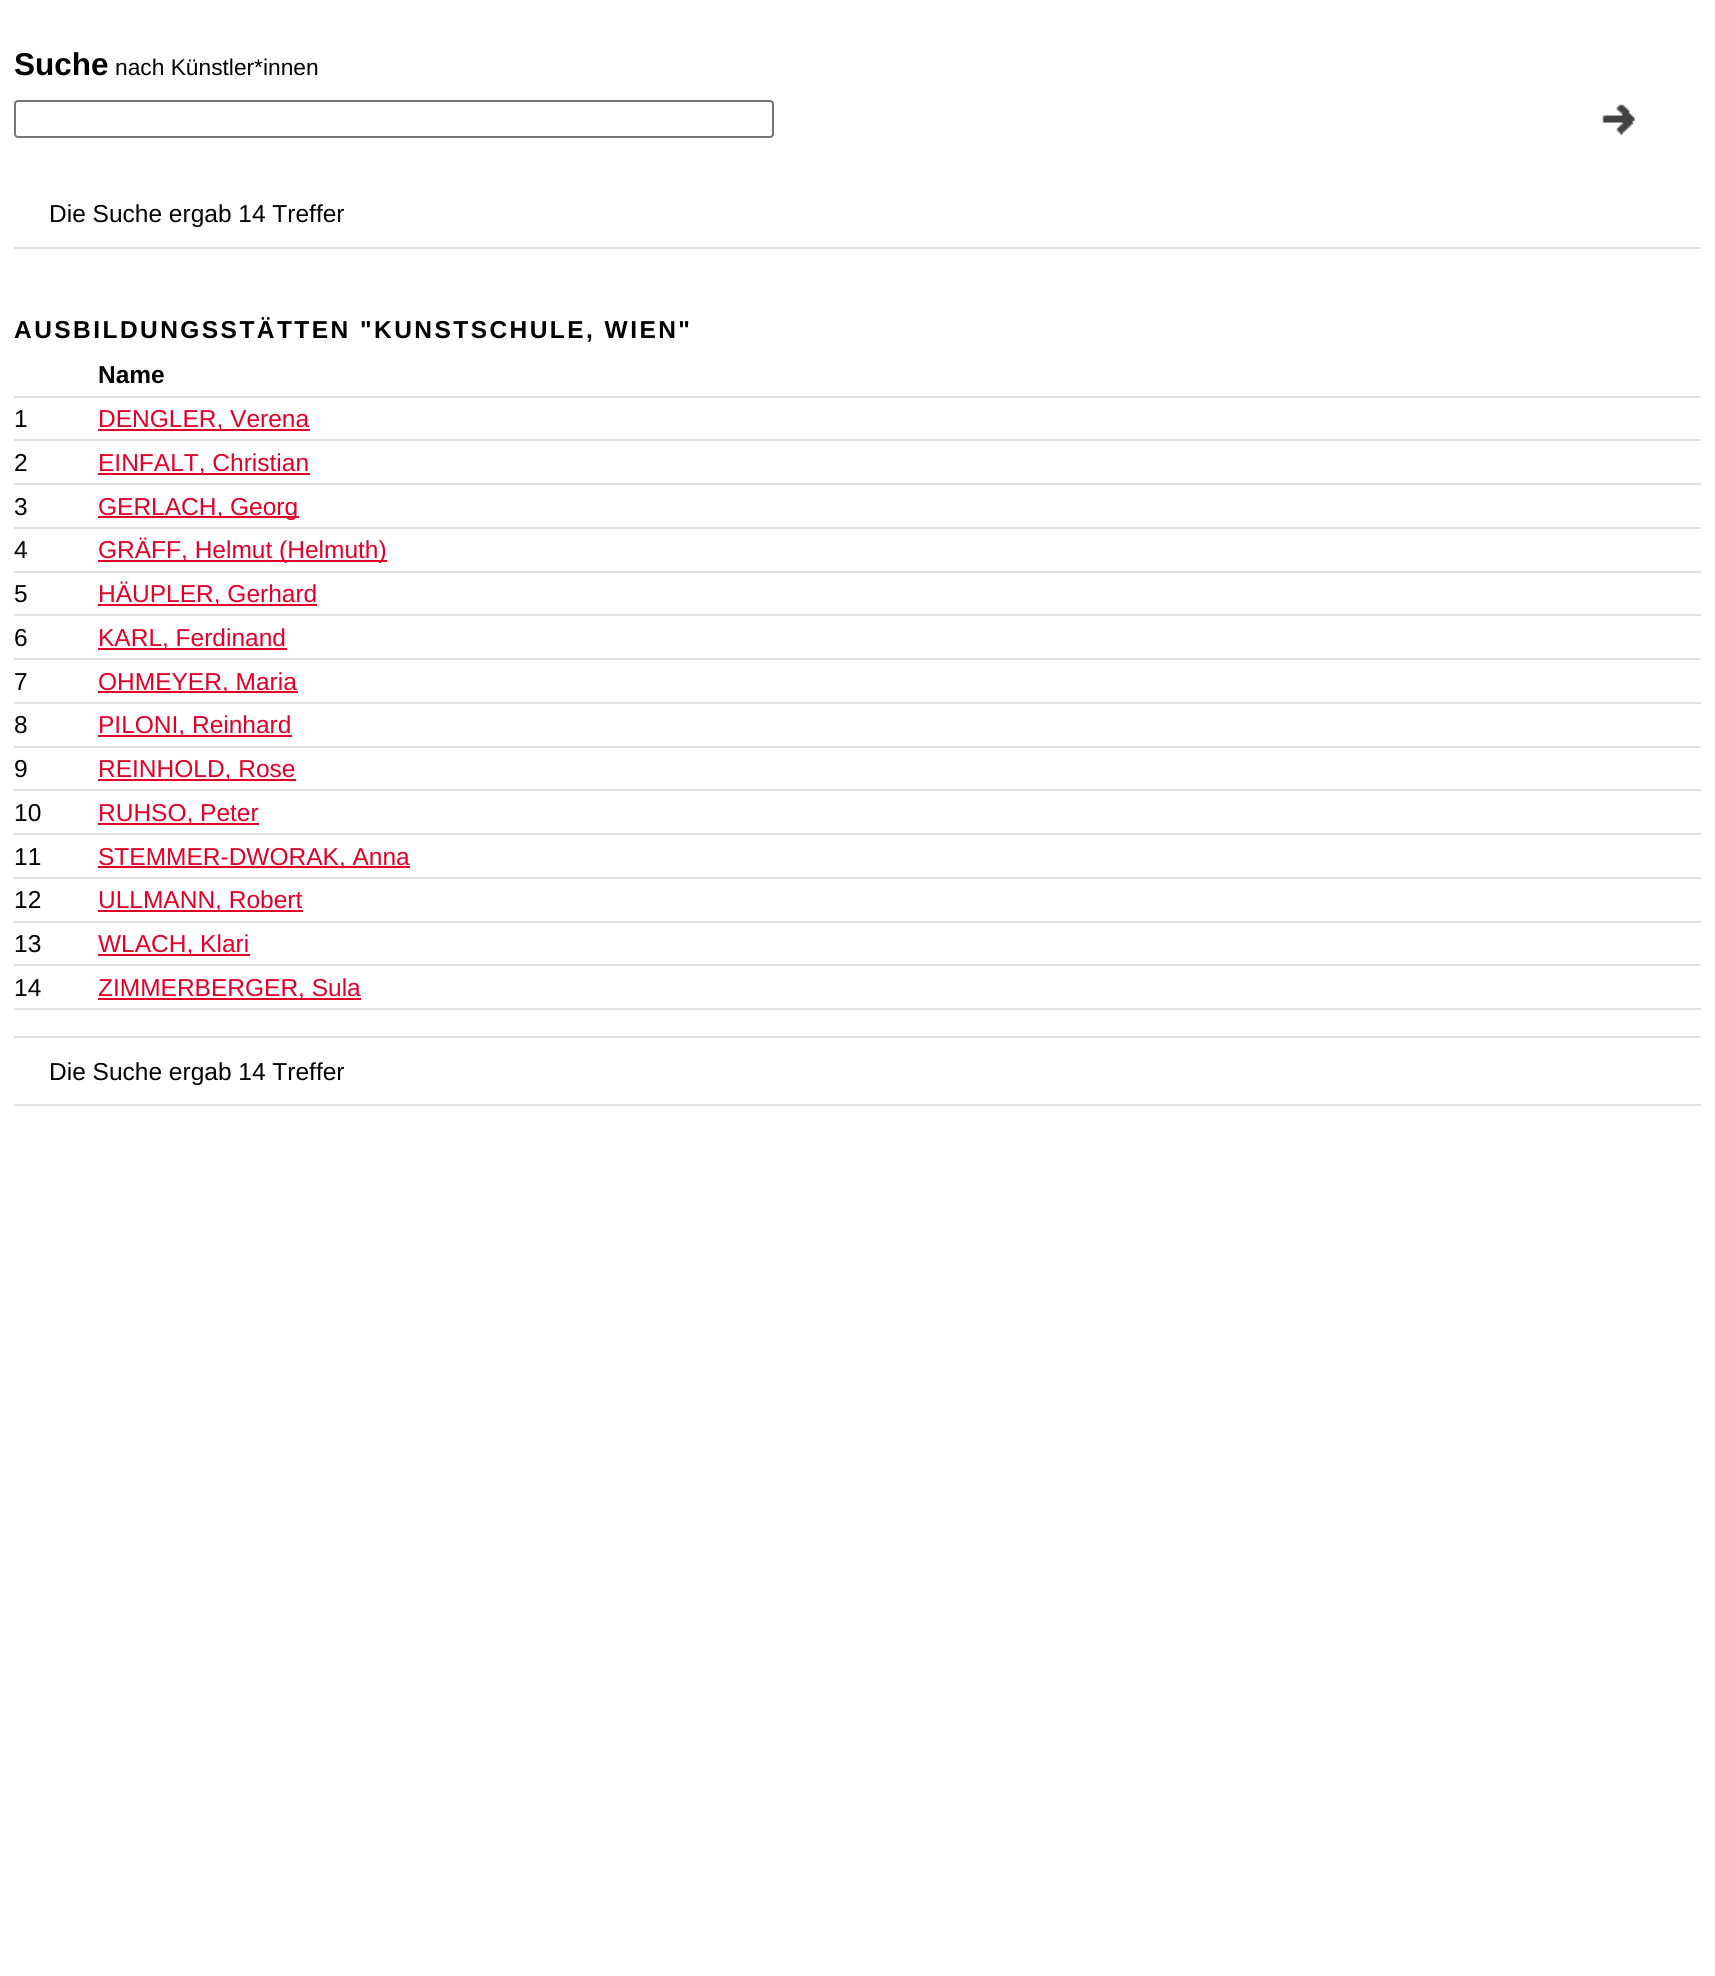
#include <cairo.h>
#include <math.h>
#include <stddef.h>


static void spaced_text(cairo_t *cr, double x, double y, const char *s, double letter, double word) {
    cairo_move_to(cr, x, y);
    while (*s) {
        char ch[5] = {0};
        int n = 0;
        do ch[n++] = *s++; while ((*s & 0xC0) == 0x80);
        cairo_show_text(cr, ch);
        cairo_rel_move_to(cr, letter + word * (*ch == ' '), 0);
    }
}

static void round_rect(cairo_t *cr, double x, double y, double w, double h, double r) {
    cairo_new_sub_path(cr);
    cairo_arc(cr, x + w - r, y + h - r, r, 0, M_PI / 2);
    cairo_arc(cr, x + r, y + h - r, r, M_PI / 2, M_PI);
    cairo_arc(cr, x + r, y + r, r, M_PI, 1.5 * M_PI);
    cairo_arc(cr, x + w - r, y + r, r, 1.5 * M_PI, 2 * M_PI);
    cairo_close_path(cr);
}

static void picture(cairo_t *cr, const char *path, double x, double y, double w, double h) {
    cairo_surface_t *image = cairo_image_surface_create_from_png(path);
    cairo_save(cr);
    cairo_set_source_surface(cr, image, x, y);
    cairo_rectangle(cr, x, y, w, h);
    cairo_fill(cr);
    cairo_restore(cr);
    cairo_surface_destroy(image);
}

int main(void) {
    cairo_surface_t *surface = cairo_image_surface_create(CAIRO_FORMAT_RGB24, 1715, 1976);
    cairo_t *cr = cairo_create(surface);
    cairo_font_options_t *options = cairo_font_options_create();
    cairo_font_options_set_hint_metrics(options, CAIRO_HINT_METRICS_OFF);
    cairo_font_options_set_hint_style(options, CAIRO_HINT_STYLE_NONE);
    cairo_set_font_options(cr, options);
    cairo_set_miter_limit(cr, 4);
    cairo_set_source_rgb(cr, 1, 1, 1);
    cairo_paint(cr);
    cairo_select_font_face(cr, "Liberation Sans", CAIRO_FONT_SLANT_NORMAL, CAIRO_FONT_WEIGHT_BOLD);
    cairo_set_font_size(cr, 31.5);
    cairo_set_source_rgb(cr, 0, 0, 0);
    cairo_move_to(cr, 14, 75);
    cairo_show_text(cr, "Suche");
    cairo_select_font_face(cr, "Liberation Sans", CAIRO_FONT_SLANT_NORMAL, CAIRO_FONT_WEIGHT_NORMAL);
    cairo_set_font_size(cr, 22.75);
    cairo_move_to(cr, 115, 75);
    cairo_show_text(cr, "nach Künstler*innen");
    round_rect(cr, 15, 101, 758, 36, 3);
    cairo_set_source_rgb(cr, 0.463, 0.463, 0.463);
    cairo_stroke(cr);
    picture(cr, "img1.png", 1602, 104, 33, 32);
    cairo_set_source_rgb(cr, 0.878, 0.886, 0.882);
    cairo_rectangle(cr, 14, 247, 1687, 2);
    cairo_fill(cr);
    cairo_set_font_size(cr, 24.5);
    cairo_set_source_rgb(cr, 0, 0, 0);
    cairo_move_to(cr, 49, 222);
    cairo_show_text(cr, "Die Suche ergab 14 Treffer");
    cairo_set_source_rgb(cr, 0.878, 0.886, 0.882);
    cairo_rectangle(cr, 14, 1036, 1687, 2);
    cairo_fill(cr);
    cairo_select_font_face(cr, "Liberation Sans", CAIRO_FONT_SLANT_NORMAL, CAIRO_FONT_WEIGHT_BOLD);
    cairo_set_source_rgb(cr, 0, 0, 0);
    spaced_text(cr, 14, 338, "AUSBILDUNGSSTÄTTEN \"KUNSTSCHULE, WIEN\"", 2.45, 0);
    cairo_move_to(cr, 98, 383);
    cairo_show_text(cr, "Name");
    cairo_set_source_rgb(cr, 0.875, 0.886, 0.882);
    cairo_rectangle(cr, 14, 396, 1687, 2);
    cairo_fill(cr);
    cairo_rectangle(cr, 14, 439, 1687, 2);
    cairo_fill(cr);
    cairo_select_font_face(cr, "Liberation Sans", CAIRO_FONT_SLANT_NORMAL, CAIRO_FONT_WEIGHT_NORMAL);
    cairo_set_source_rgb(cr, 0, 0, 0);
    cairo_move_to(cr, 14, 427);
    cairo_show_text(cr, "1");
    cairo_set_source_rgb(cr, 0.882, 0, 0.157);
    cairo_rectangle(cr, 98, 429, 212, 2);
    cairo_fill(cr);
    cairo_move_to(cr, 98, 427);
    cairo_show_text(cr, "DENGLER, Verena");
    cairo_set_source_rgb(cr, 0.875, 0.886, 0.882);
    cairo_rectangle(cr, 14, 483, 1687, 2);
    cairo_fill(cr);
    cairo_set_source_rgb(cr, 0, 0, 0);
    cairo_move_to(cr, 14, 471);
    cairo_show_text(cr, "2");
    cairo_set_source_rgb(cr, 0.882, 0, 0.157);
    cairo_rectangle(cr, 98, 473, 212, 2);
    cairo_fill(cr);
    cairo_move_to(cr, 98, 471);
    cairo_show_text(cr, "EINFALT, Christian");
    cairo_set_source_rgb(cr, 0.875, 0.886, 0.882);
    cairo_rectangle(cr, 14, 527, 1687, 2);
    cairo_fill(cr);
    cairo_set_source_rgb(cr, 0, 0, 0);
    cairo_move_to(cr, 14, 515);
    cairo_show_text(cr, "3");
    cairo_set_source_rgb(cr, 0.882, 0, 0.157);
    cairo_rectangle(cr, 98, 516, 201, 2);
    cairo_fill(cr);
    cairo_move_to(cr, 98, 515);
    cairo_show_text(cr, "GERLACH, Georg");
    cairo_set_source_rgb(cr, 0.875, 0.886, 0.882);
    cairo_rectangle(cr, 14, 571, 1687, 2);
    cairo_fill(cr);
    cairo_set_source_rgb(cr, 0, 0, 0);
    cairo_move_to(cr, 14, 558);
    cairo_show_text(cr, "4");
    cairo_set_source_rgb(cr, 0.882, 0, 0.157);
    cairo_rectangle(cr, 98, 560, 289, 2);
    cairo_fill(cr);
    cairo_move_to(cr, 98, 558);
    cairo_show_text(cr, "GRÄFF, Helmut (Helmuth)");
    cairo_set_source_rgb(cr, 0.875, 0.886, 0.882);
    cairo_rectangle(cr, 14, 614, 1687, 2);
    cairo_fill(cr);
    cairo_set_source_rgb(cr, 0, 0, 0);
    cairo_move_to(cr, 14, 602);
    cairo_show_text(cr, "5");
    cairo_set_source_rgb(cr, 0.882, 0, 0.157);
    cairo_rectangle(cr, 98, 604, 219, 2);
    cairo_fill(cr);
    cairo_move_to(cr, 98, 602);
    cairo_show_text(cr, "HÄUPLER, Gerhard");
    cairo_set_source_rgb(cr, 0.875, 0.886, 0.882);
    cairo_rectangle(cr, 14, 658, 1687, 2);
    cairo_fill(cr);
    cairo_set_source_rgb(cr, 0, 0, 0);
    cairo_move_to(cr, 14, 646);
    cairo_show_text(cr, "6");
    cairo_set_source_rgb(cr, 0.882, 0, 0.157);
    cairo_rectangle(cr, 98, 648, 189, 2);
    cairo_fill(cr);
    cairo_move_to(cr, 98, 646);
    cairo_show_text(cr, "KARL, Ferdinand");
    cairo_set_source_rgb(cr, 0.875, 0.886, 0.882);
    cairo_rectangle(cr, 14, 702, 1687, 2);
    cairo_fill(cr);
    cairo_set_source_rgb(cr, 0, 0, 0);
    cairo_move_to(cr, 14, 690);
    cairo_show_text(cr, "7");
    cairo_set_source_rgb(cr, 0.882, 0, 0.157);
    cairo_rectangle(cr, 98, 691, 200, 2);
    cairo_fill(cr);
    cairo_move_to(cr, 98, 690);
    cairo_show_text(cr, "OHMEYER, Maria");
    cairo_set_source_rgb(cr, 0.875, 0.886, 0.882);
    cairo_rectangle(cr, 14, 746, 1687, 2);
    cairo_fill(cr);
    cairo_set_source_rgb(cr, 0, 0, 0);
    cairo_move_to(cr, 14, 733);
    cairo_show_text(cr, "8");
    cairo_set_source_rgb(cr, 0.882, 0, 0.157);
    cairo_rectangle(cr, 98, 735, 194, 2);
    cairo_fill(cr);
    cairo_move_to(cr, 98, 733);
    cairo_show_text(cr, "PILONI, Reinhard");
    cairo_set_source_rgb(cr, 0.875, 0.886, 0.882);
    cairo_rectangle(cr, 14, 789, 1687, 2);
    cairo_fill(cr);
    cairo_set_source_rgb(cr, 0, 0, 0);
    cairo_move_to(cr, 14, 777);
    cairo_show_text(cr, "9");
    cairo_set_source_rgb(cr, 0.882, 0, 0.157);
    cairo_rectangle(cr, 98, 779, 198, 2);
    cairo_fill(cr);
    cairo_move_to(cr, 98, 777);
    cairo_show_text(cr, "REINHOLD, Rose");
    cairo_set_source_rgb(cr, 0.875, 0.886, 0.882);
    cairo_rectangle(cr, 14, 833, 1687, 2);
    cairo_fill(cr);
    cairo_set_source_rgb(cr, 0, 0, 0);
    cairo_move_to(cr, 14, 821);
    cairo_show_text(cr, "10");
    cairo_set_source_rgb(cr, 0.882, 0, 0.157);
    cairo_rectangle(cr, 98, 823, 161, 2);
    cairo_fill(cr);
    cairo_move_to(cr, 98, 821);
    cairo_show_text(cr, "RUHSO, Peter");
    cairo_set_source_rgb(cr, 0.875, 0.886, 0.882);
    cairo_rectangle(cr, 14, 877, 1687, 2);
    cairo_fill(cr);
    cairo_set_source_rgb(cr, 0, 0, 0);
    cairo_move_to(cr, 14, 865);
    cairo_show_text(cr, "11");
    cairo_set_source_rgb(cr, 0.882, 0, 0.157);
    cairo_rectangle(cr, 98, 866, 312, 2);
    cairo_fill(cr);
    cairo_move_to(cr, 98, 865);
    cairo_show_text(cr, "STEMMER-DWORAK, Anna");
    cairo_set_source_rgb(cr, 0.875, 0.886, 0.882);
    cairo_rectangle(cr, 14, 921, 1687, 2);
    cairo_fill(cr);
    cairo_set_source_rgb(cr, 0, 0, 0);
    cairo_move_to(cr, 14, 908);
    cairo_show_text(cr, "12");
    cairo_set_source_rgb(cr, 0.882, 0, 0.157);
    cairo_rectangle(cr, 98, 910, 205, 2);
    cairo_fill(cr);
    cairo_move_to(cr, 98, 908);
    cairo_show_text(cr, "ULLMANN, Robert");
    cairo_set_source_rgb(cr, 0.875, 0.886, 0.882);
    cairo_rectangle(cr, 14, 964, 1687, 2);
    cairo_fill(cr);
    cairo_set_source_rgb(cr, 0, 0, 0);
    cairo_move_to(cr, 14, 952);
    cairo_show_text(cr, "13");
    cairo_set_source_rgb(cr, 0.882, 0, 0.157);
    cairo_rectangle(cr, 98, 954, 152, 2);
    cairo_fill(cr);
    cairo_move_to(cr, 98, 952);
    cairo_show_text(cr, "WLACH, Klari");
    cairo_set_source_rgb(cr, 0.875, 0.886, 0.882);
    cairo_rectangle(cr, 14, 1008, 1687, 2);
    cairo_fill(cr);
    cairo_set_source_rgb(cr, 0, 0, 0);
    cairo_move_to(cr, 14, 996);
    cairo_show_text(cr, "14");
    cairo_set_source_rgb(cr, 0.882, 0, 0.157);
    cairo_rectangle(cr, 98, 998, 263, 2);
    cairo_fill(cr);
    cairo_move_to(cr, 98, 996);
    cairo_show_text(cr, "ZIMMERBERGER, Sula");
    cairo_set_source_rgb(cr, 0.878, 0.886, 0.882);
    cairo_rectangle(cr, 14, 1104, 1687, 2);
    cairo_fill(cr);
    cairo_set_source_rgb(cr, 0, 0, 0);
    cairo_move_to(cr, 49, 1080);
    cairo_show_text(cr, "Die Suche ergab 14 Treffer");
    cairo_surface_write_to_png(surface, "page.png");
    cairo_font_options_destroy(options);
    cairo_destroy(cr);
    cairo_surface_destroy(surface);
    return 0;
}
